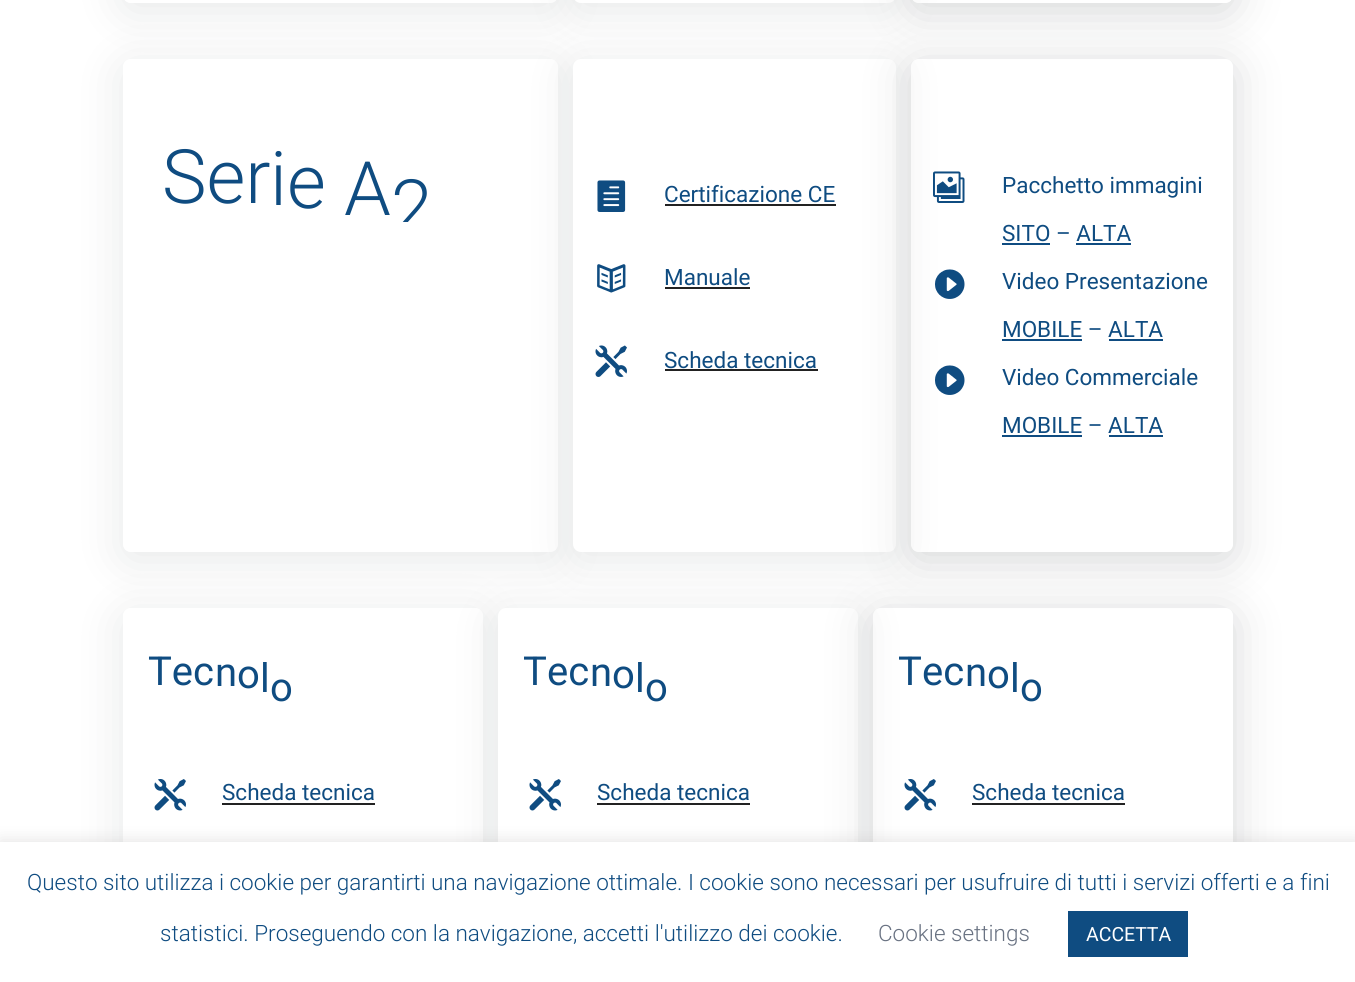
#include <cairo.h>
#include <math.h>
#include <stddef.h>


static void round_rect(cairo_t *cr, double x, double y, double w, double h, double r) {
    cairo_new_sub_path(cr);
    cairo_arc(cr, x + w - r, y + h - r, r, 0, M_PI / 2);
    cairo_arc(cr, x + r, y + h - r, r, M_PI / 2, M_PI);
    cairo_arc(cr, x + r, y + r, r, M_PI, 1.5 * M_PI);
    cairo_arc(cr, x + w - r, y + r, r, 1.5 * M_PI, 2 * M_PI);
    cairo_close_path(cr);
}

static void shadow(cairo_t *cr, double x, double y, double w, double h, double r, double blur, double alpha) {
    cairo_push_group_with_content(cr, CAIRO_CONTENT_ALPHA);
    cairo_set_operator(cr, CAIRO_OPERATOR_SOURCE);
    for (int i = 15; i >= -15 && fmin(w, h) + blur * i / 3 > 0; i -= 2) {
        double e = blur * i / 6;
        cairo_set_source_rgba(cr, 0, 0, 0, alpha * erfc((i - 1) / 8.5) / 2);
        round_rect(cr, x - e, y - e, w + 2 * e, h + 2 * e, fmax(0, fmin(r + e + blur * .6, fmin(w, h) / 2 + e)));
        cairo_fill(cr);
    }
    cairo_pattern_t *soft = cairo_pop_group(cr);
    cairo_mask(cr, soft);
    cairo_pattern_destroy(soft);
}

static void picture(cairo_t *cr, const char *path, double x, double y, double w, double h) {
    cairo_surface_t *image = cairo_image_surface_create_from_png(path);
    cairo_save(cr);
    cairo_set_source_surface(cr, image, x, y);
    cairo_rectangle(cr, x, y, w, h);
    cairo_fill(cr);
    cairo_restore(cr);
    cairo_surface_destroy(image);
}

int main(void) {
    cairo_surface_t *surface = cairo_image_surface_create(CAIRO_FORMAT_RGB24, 1355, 982);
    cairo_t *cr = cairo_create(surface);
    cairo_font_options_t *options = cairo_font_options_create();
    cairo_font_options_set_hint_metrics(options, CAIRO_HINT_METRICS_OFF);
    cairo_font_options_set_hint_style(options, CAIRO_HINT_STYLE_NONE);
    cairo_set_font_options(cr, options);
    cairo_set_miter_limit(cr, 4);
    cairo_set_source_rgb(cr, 1, 1, 1);
    cairo_paint(cr);
    cairo_save(cr);
    cairo_set_fill_rule(cr, CAIRO_FILL_RULE_EVEN_ODD);
    cairo_new_path(cr);
    cairo_move_to(cr, 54, 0);
    cairo_line_to(cr, 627, 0);
    cairo_line_to(cr, 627, 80);
    cairo_line_to(cr, 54, 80);
    cairo_close_path(cr);
    cairo_move_to(cr, 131, -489);
    cairo_line_to(cr, 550, -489);
    cairo_curve_to(cr, 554.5, -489, 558, -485.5, 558, -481);
    cairo_line_to(cr, 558, -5);
    cairo_curve_to(cr, 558, -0.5, 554.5, 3, 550, 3);
    cairo_line_to(cr, 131, 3);
    cairo_curve_to(cr, 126.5, 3, 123, -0.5, 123, -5);
    cairo_line_to(cr, 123, -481);
    cairo_curve_to(cr, 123, -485.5, 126.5, -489, 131, -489);
    cairo_close_path(cr);
    cairo_clip(cr);
    cairo_set_source_rgb(cr, 0.839, 0.843, 0.847);
    shadow(cr, 123, -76, 435, 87, 8, 22.5, 0.57);
    cairo_restore(cr);
    cairo_set_source_rgb(cr, 0.839, 0.843, 0.847);
    shadow(cr, 573, -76, 323, 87, 8, 22.5, 0.57);
    cairo_set_source_rgb(cr, 1, 1, 1);
    round_rect(cr, 573, -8, 323, 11, 8);
    cairo_fill(cr);
    cairo_save(cr);
    cairo_set_fill_rule(cr, CAIRO_FILL_RULE_EVEN_ODD);
    cairo_new_path(cr);
    cairo_move_to(cr, 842, 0);
    cairo_line_to(cr, 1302, 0);
    cairo_line_to(cr, 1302, 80);
    cairo_line_to(cr, 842, 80);
    cairo_close_path(cr);
    cairo_move_to(cr, 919, -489);
    cairo_line_to(cr, 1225, -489);
    cairo_curve_to(cr, 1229.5, -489, 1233, -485.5, 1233, -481);
    cairo_line_to(cr, 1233, -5);
    cairo_curve_to(cr, 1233, -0.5, 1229.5, 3, 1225, 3);
    cairo_line_to(cr, 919, 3);
    cairo_curve_to(cr, 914.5, 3, 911, -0.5, 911, -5);
    cairo_line_to(cr, 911, -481);
    cairo_curve_to(cr, 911, -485.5, 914.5, -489, 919, -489);
    cairo_close_path(cr);
    cairo_clip(cr);
    cairo_set_source_rgb(cr, 0.839, 0.843, 0.847);
    shadow(cr, 911, -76, 322, 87, 8, 22.5, 1);
    cairo_restore(cr);
    cairo_save(cr);
    cairo_set_fill_rule(cr, CAIRO_FILL_RULE_EVEN_ODD);
    cairo_new_path(cr);
    cairo_move_to(cr, 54, 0);
    cairo_line_to(cr, 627, 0);
    cairo_line_to(cr, 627, 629);
    cairo_line_to(cr, 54, 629);
    cairo_close_path(cr);
    cairo_move_to(cr, 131, 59);
    cairo_line_to(cr, 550, 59);
    cairo_curve_to(cr, 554.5, 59, 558, 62.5, 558, 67);
    cairo_line_to(cr, 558, 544);
    cairo_curve_to(cr, 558, 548.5, 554.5, 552, 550, 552);
    cairo_line_to(cr, 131, 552);
    cairo_curve_to(cr, 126.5, 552, 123, 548.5, 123, 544);
    cairo_line_to(cr, 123, 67);
    cairo_curve_to(cr, 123, 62.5, 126.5, 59, 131, 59);
    cairo_close_path(cr);
    cairo_clip(cr);
    cairo_set_source_rgb(cr, 0.839, 0.843, 0.847);
    shadow(cr, 123, 66, 435, 494, 8, 22.5, 0.57);
    cairo_restore(cr);
    cairo_select_font_face(cr, "Roboto Light", CAIRO_FONT_SLANT_NORMAL, CAIRO_FONT_WEIGHT_NORMAL);
    cairo_set_font_size(cr, 75);
    cairo_set_source_rgb(cr, 0.059, 0.298, 0.506);
    cairo_move_to(cr, 162, 203);
    cairo_show_text(cr, "Ser");
    cairo_move_to(cr, 270, 205);
    cairo_show_text(cr, "i");
    cairo_move_to(cr, 287, 208);
    cairo_show_text(cr, "e");
    cairo_move_to(cr, 344, 215);
    cairo_show_text(cr, "A");
    cairo_save(cr);
    cairo_rectangle(cr, 162, 125, 357, 97);
    cairo_clip(cr);
    cairo_move_to(cr, 391, 233);
    cairo_show_text(cr, "2");
    cairo_restore(cr);
    cairo_set_source_rgb(cr, 0.839, 0.843, 0.847);
    shadow(cr, 573, 66, 323, 494, 8, 22.5, 0.57);
    cairo_set_source_rgb(cr, 1, 1, 1);
    round_rect(cr, 573, 59, 323, 493, 8);
    cairo_fill(cr);
    picture(cr, "img1.png", 597, 180, 29, 32);
    cairo_select_font_face(cr, "Roboto", CAIRO_FONT_SLANT_NORMAL, CAIRO_FONT_WEIGHT_NORMAL);
    cairo_set_font_size(cr, 22.5);
    cairo_set_source_rgb(cr, 0.059, 0.298, 0.506);
    cairo_move_to(cr, 664, 202);
    cairo_show_text(cr, "Certificazione CE");
    cairo_set_source_rgb(cr, 0.133, 0.133, 0.133);
    cairo_rectangle(cr, 665, 204, 171, 2);
    cairo_fill(cr);
    picture(cr, "img2.png", 597, 264, 29, 29);
    cairo_set_source_rgb(cr, 0.059, 0.298, 0.506);
    cairo_move_to(cr, 664, 285);
    cairo_show_text(cr, "Manuale");
    cairo_set_source_rgb(cr, 0.133, 0.133, 0.133);
    cairo_rectangle(cr, 665, 287, 85, 2);
    cairo_fill(cr);
    picture(cr, "img3.png", 595, 345, 32, 32);
    cairo_set_source_rgb(cr, 0.059, 0.298, 0.506);
    cairo_move_to(cr, 664, 368);
    cairo_show_text(cr, "Scheda tecnica");
    cairo_set_source_rgb(cr, 0.133, 0.133, 0.133);
    cairo_rectangle(cr, 665, 369, 153, 2);
    cairo_fill(cr);
    cairo_save(cr);
    cairo_set_fill_rule(cr, CAIRO_FILL_RULE_EVEN_ODD);
    cairo_new_path(cr);
    cairo_move_to(cr, 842, 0);
    cairo_line_to(cr, 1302, 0);
    cairo_line_to(cr, 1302, 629);
    cairo_line_to(cr, 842, 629);
    cairo_close_path(cr);
    cairo_move_to(cr, 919, 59);
    cairo_line_to(cr, 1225, 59);
    cairo_curve_to(cr, 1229.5, 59, 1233, 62.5, 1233, 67);
    cairo_line_to(cr, 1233, 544);
    cairo_curve_to(cr, 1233, 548.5, 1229.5, 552, 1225, 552);
    cairo_line_to(cr, 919, 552);
    cairo_curve_to(cr, 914.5, 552, 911, 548.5, 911, 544);
    cairo_line_to(cr, 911, 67);
    cairo_curve_to(cr, 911, 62.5, 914.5, 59, 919, 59);
    cairo_close_path(cr);
    cairo_clip(cr);
    cairo_set_source_rgb(cr, 0.839, 0.843, 0.847);
    shadow(cr, 911, 66, 322, 494, 8, 22.5, 1);
    cairo_restore(cr);
    picture(cr, "img4.png", 933, 171, 32, 32);
    cairo_set_source_rgb(cr, 0.059, 0.298, 0.506);
    cairo_move_to(cr, 1002, 193);
    cairo_show_text(cr, "Pacchetto immagini");
    cairo_move_to(cr, 1002, 241);
    cairo_show_text(cr, "SITO – ALTA");
    cairo_rectangle(cr, 1002, 243, 48, 2);
    cairo_fill(cr);
    cairo_rectangle(cr, 1076, 243, 55, 2);
    cairo_fill(cr);
    picture(cr, "img5.png", 935, 269, 30, 30);
    cairo_move_to(cr, 1002, 289);
    cairo_show_text(cr, "Video Presentazione");
    cairo_move_to(cr, 1002, 337);
    cairo_show_text(cr, "MOBILE – ALTA");
    cairo_rectangle(cr, 1002, 339, 80, 2);
    cairo_fill(cr);
    cairo_rectangle(cr, 1109, 339, 54, 2);
    cairo_fill(cr);
    picture(cr, "img5.png", 935, 365, 30, 30);
    cairo_move_to(cr, 1002, 385);
    cairo_show_text(cr, "Video Commerciale");
    cairo_move_to(cr, 1002, 433);
    cairo_show_text(cr, "MOBILE – ALTA");
    cairo_rectangle(cr, 1002, 435, 80, 2);
    cairo_fill(cr);
    cairo_rectangle(cr, 1109, 435, 54, 2);
    cairo_fill(cr);
    cairo_save(cr);
    cairo_set_fill_rule(cr, CAIRO_FILL_RULE_EVEN_ODD);
    cairo_new_path(cr);
    cairo_move_to(cr, 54, 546);
    cairo_line_to(cr, 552, 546);
    cairo_line_to(cr, 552, 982);
    cairo_line_to(cr, 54, 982);
    cairo_close_path(cr);
    cairo_move_to(cr, 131, 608);
    cairo_line_to(cr, 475, 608);
    cairo_curve_to(cr, 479.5, 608, 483, 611.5, 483, 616);
    cairo_line_to(cr, 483, 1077);
    cairo_curve_to(cr, 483, 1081.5, 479.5, 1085, 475, 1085);
    cairo_line_to(cr, 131, 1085);
    cairo_curve_to(cr, 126.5, 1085, 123, 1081.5, 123, 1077);
    cairo_line_to(cr, 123, 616);
    cairo_curve_to(cr, 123, 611.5, 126.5, 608, 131, 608);
    cairo_close_path(cr);
    cairo_clip(cr);
    cairo_set_source_rgb(cr, 0.839, 0.843, 0.847);
    shadow(cr, 123, 615, 360, 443, 8, 22.5, 0.57);
    cairo_restore(cr);
    cairo_set_font_size(cr, 40);
    cairo_move_to(cr, 148, 685);
    cairo_show_text(cr, "Tec");
    cairo_move_to(cr, 215, 686);
    cairo_show_text(cr, "n");
    cairo_move_to(cr, 237, 688);
    cairo_show_text(cr, "o");
    cairo_move_to(cr, 260, 692);
    cairo_show_text(cr, "l");
    cairo_move_to(cr, 270, 701);
    cairo_show_text(cr, "o");
    picture(cr, "img6.png", 154, 779, 32, 32);
    cairo_set_font_size(cr, 22.5);
    cairo_move_to(cr, 222, 800);
    cairo_show_text(cr, "Scheda tecnica");
    cairo_set_source_rgb(cr, 0.133, 0.133, 0.133);
    cairo_rectangle(cr, 222, 803, 153, 2);
    cairo_fill(cr);
    cairo_set_source_rgb(cr, 0.839, 0.843, 0.847);
    shadow(cr, 498, 615, 360, 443, 8, 22.5, 0.57);
    cairo_set_source_rgb(cr, 1, 1, 1);
    round_rect(cr, 498, 608, 360, 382, 8);
    cairo_fill(cr);
    cairo_save(cr);
    cairo_rectangle(cr, 524, 626, 309, 87);
    cairo_clip(cr);
    cairo_set_font_size(cr, 40);
    cairo_set_source_rgb(cr, 0.059, 0.298, 0.506);
    cairo_move_to(cr, 523, 685);
    cairo_show_text(cr, "T");
    cairo_restore(cr);
    cairo_set_font_size(cr, 40);
    cairo_set_source_rgb(cr, 0.059, 0.298, 0.506);
    cairo_move_to(cr, 547, 685);
    cairo_show_text(cr, "ec");
    cairo_move_to(cr, 590, 686);
    cairo_show_text(cr, "n");
    cairo_move_to(cr, 612, 688);
    cairo_show_text(cr, "o");
    cairo_move_to(cr, 635, 692);
    cairo_show_text(cr, "l");
    cairo_move_to(cr, 645, 701);
    cairo_show_text(cr, "o");
    picture(cr, "img6.png", 529, 779, 32, 32);
    cairo_set_font_size(cr, 22.5);
    cairo_move_to(cr, 597, 800);
    cairo_show_text(cr, "Scheda tecnica");
    cairo_set_source_rgb(cr, 0.133, 0.133, 0.133);
    cairo_rectangle(cr, 597, 803, 153, 2);
    cairo_fill(cr);
    cairo_save(cr);
    cairo_set_fill_rule(cr, CAIRO_FILL_RULE_EVEN_ODD);
    cairo_new_path(cr);
    cairo_move_to(cr, 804, 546);
    cairo_line_to(cr, 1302, 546);
    cairo_line_to(cr, 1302, 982);
    cairo_line_to(cr, 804, 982);
    cairo_close_path(cr);
    cairo_move_to(cr, 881, 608);
    cairo_line_to(cr, 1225, 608);
    cairo_curve_to(cr, 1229.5, 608, 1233, 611.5, 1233, 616);
    cairo_line_to(cr, 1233, 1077);
    cairo_curve_to(cr, 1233, 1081.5, 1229.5, 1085, 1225, 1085);
    cairo_line_to(cr, 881, 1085);
    cairo_curve_to(cr, 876.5, 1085, 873, 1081.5, 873, 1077);
    cairo_line_to(cr, 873, 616);
    cairo_curve_to(cr, 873, 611.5, 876.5, 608, 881, 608);
    cairo_close_path(cr);
    cairo_clip(cr);
    cairo_set_source_rgb(cr, 0.839, 0.843, 0.847);
    shadow(cr, 873, 615, 360, 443, 8, 22.5, 1);
    cairo_restore(cr);
    cairo_save(cr);
    cairo_rectangle(cr, 899, 626, 309, 87);
    cairo_clip(cr);
    cairo_set_font_size(cr, 40);
    cairo_set_source_rgb(cr, 0.059, 0.298, 0.506);
    cairo_move_to(cr, 898, 685);
    cairo_show_text(cr, "T");
    cairo_restore(cr);
    cairo_set_font_size(cr, 40);
    cairo_set_source_rgb(cr, 0.059, 0.298, 0.506);
    cairo_move_to(cr, 922, 685);
    cairo_show_text(cr, "ec");
    cairo_move_to(cr, 965, 686);
    cairo_show_text(cr, "n");
    cairo_move_to(cr, 987, 688);
    cairo_show_text(cr, "o");
    cairo_move_to(cr, 1010, 692);
    cairo_show_text(cr, "l");
    cairo_move_to(cr, 1020, 701);
    cairo_show_text(cr, "o");
    picture(cr, "img7.png", 904, 779, 32, 32);
    cairo_set_font_size(cr, 22.5);
    cairo_move_to(cr, 972, 800);
    cairo_show_text(cr, "Scheda tecnica");
    cairo_set_source_rgb(cr, 0.133, 0.133, 0.133);
    cairo_rectangle(cr, 972, 803, 153, 2);
    cairo_fill(cr);
    cairo_set_source_rgb(cr, 0.675, 0.671, 0.671);
    shadow(cr, 0, 840, 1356, 141, 0, 7.5, 0.3);
    cairo_set_source_rgb(cr, 1, 1, 1);
    cairo_rectangle(cr, 0, 842, 1355, 140);
    cairo_fill(cr);
    cairo_select_font_face(cr, "Roboto Light", CAIRO_FONT_SLANT_NORMAL, CAIRO_FONT_WEIGHT_NORMAL);
    cairo_set_source_rgb(cr, 0.059, 0.298, 0.506);
    cairo_move_to(cr, 27, 890);
    cairo_show_text(cr, "Questo sito utilizza i cookie per garantirti una navigazione ottimale. I cookie sono necessari per usufruire di tutti i servizi offerti e a fini");
    cairo_move_to(cr, 160, 941);
    cairo_show_text(cr, "statistici. Proseguendo con la navigazione, accetti l'utilizzo dei cookie.");
    cairo_set_source_rgb(cr, 0.412, 0.447, 0.51);
    cairo_move_to(cr, 878, 941);
    cairo_show_text(cr, "Cookie settings");
    cairo_set_source_rgb(cr, 0.059, 0.298, 0.506);
    cairo_rectangle(cr, 1068, 911, 120, 46);
    cairo_fill(cr);
    cairo_select_font_face(cr, "Roboto", CAIRO_FONT_SLANT_NORMAL, CAIRO_FONT_WEIGHT_NORMAL);
    cairo_set_font_size(cr, 19.5);
    cairo_set_source_rgb(cr, 1, 1, 1);
    cairo_move_to(cr, 1086, 941);
    cairo_show_text(cr, "ACCETTA");
    cairo_surface_write_to_png(surface, "page.png");
    cairo_font_options_destroy(options);
    cairo_destroy(cr);
    cairo_surface_destroy(surface);
    return 0;
}
